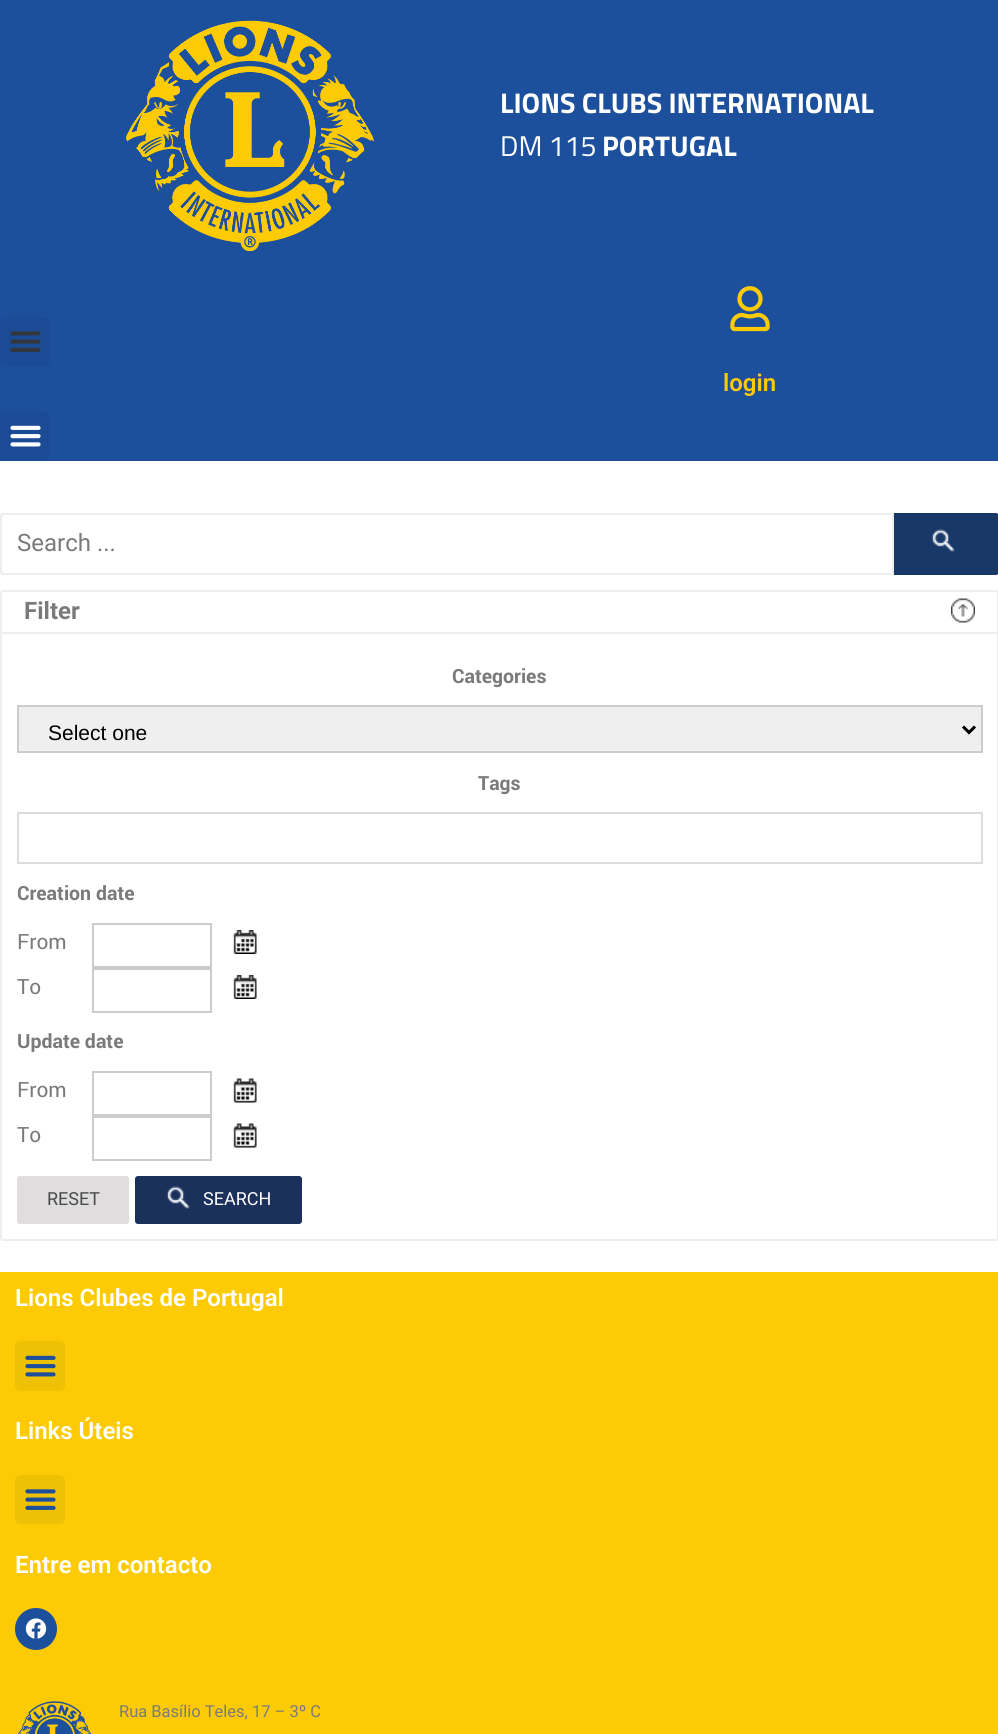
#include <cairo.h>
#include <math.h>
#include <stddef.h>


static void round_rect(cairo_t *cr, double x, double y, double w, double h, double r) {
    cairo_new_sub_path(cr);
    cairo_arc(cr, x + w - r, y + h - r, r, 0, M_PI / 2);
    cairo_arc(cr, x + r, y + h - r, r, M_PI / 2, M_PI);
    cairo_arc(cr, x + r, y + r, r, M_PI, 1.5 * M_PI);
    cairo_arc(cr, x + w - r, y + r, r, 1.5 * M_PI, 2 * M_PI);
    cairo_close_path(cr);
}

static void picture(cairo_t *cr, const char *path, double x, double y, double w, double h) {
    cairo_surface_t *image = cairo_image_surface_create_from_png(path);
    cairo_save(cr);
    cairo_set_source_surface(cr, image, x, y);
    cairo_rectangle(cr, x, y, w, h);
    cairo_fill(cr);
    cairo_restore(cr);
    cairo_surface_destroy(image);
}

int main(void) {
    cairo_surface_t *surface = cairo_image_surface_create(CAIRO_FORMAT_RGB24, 998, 1734);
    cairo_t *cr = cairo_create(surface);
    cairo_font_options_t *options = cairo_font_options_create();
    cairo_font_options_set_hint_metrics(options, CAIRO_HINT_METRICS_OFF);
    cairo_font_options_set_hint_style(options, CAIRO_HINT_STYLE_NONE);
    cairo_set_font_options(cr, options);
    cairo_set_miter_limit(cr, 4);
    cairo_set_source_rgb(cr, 1, 1, 1);
    cairo_paint(cr);
    cairo_set_source_rgb(cr, 0.11, 0.31, 0.612);
    cairo_rectangle(cr, 0, 0, 998, 461);
    cairo_fill(cr);
    picture(cr, "img1.png", 126, 20, 248, 232);
    cairo_select_font_face(cr, "Titillium Web", CAIRO_FONT_SLANT_NORMAL, CAIRO_FONT_WEIGHT_BOLD);
    cairo_set_font_size(cr, 28.5);
    cairo_set_source_rgb(cr, 1, 1, 1);
    cairo_move_to(cr, 500, 113);
    cairo_show_text(cr, "LIONS CLUBS INTERNATIONAL");
    cairo_select_font_face(cr, "Titillium Web", CAIRO_FONT_SLANT_NORMAL, CAIRO_FONT_WEIGHT_NORMAL);
    cairo_move_to(cr, 500, 156);
    cairo_show_text(cr, "DM 115");
    cairo_select_font_face(cr, "Titillium Web", CAIRO_FONT_SLANT_NORMAL, CAIRO_FONT_WEIGHT_BOLD);
    cairo_move_to(cr, 602, 156);
    cairo_show_text(cr, "PORTUGAL");
    cairo_set_source_rgb(cr, 0.106, 0.294, 0.58);
    round_rect(cr, 0, 317, 50, 49, 5);
    cairo_fill(cr);
    picture(cr, "img2.png", 10, 331, 31, 21);
    picture(cr, "img3.png", 730, 286, 40, 46);
    cairo_select_font_face(cr, "Roboto SemiBold", CAIRO_FONT_SLANT_NORMAL, CAIRO_FONT_WEIGHT_NORMAL);
    cairo_set_font_size(cr, 24);
    cairo_set_source_rgb(cr, 0.988, 0.796, 0.024);
    cairo_move_to(cr, 723, 391);
    cairo_show_text(cr, "login");
    cairo_set_source_rgb(cr, 0.106, 0.294, 0.58);
    round_rect(cr, 0, 411, 50, 50, 5);
    cairo_fill(cr);
    picture(cr, "img4.png", 10, 425, 31, 22);
    cairo_new_path(cr);
    cairo_move_to(cr, 3, 514);
    cairo_line_to(cr, 893, 514);
    cairo_line_to(cr, 893, 574);
    cairo_line_to(cr, 3, 574);
    cairo_curve_to(cr, 2, 574, 1, 573, 1, 572);
    cairo_line_to(cr, 1, 516);
    cairo_curve_to(cr, 1, 515, 2, 514, 3, 514);
    cairo_close_path(cr);
    cairo_set_source_rgb(cr, 0.933, 0.933, 0.933);
    cairo_stroke(cr);
    cairo_select_font_face(cr, "Roboto", CAIRO_FONT_SLANT_NORMAL, CAIRO_FONT_WEIGHT_NORMAL);
    cairo_set_source_rgb(cr, 0.478, 0.478, 0.478);
    cairo_move_to(cr, 17, 551);
    cairo_show_text(cr, "Search ...");
    cairo_set_source_rgb(cr, 0.094, 0.22, 0.404);
    cairo_new_path(cr);
    cairo_move_to(cr, 894, 513);
    cairo_line_to(cr, 996, 513);
    cairo_curve_to(cr, 997.5, 513, 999, 514.5, 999, 516);
    cairo_line_to(cr, 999, 572);
    cairo_curve_to(cr, 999, 573.5, 997.5, 575, 996, 575);
    cairo_line_to(cr, 894, 575);
    cairo_close_path(cr);
    cairo_fill(cr);
    picture(cr, "img5.png", 931, 529, 24, 23);
    round_rect(cr, 1, 591, 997, 649, 2);
    cairo_set_source_rgb(cr, 0.933, 0.933, 0.933);
    cairo_stroke(cr);
    cairo_rectangle(cr, 2, 632, 996, 2);
    cairo_fill(cr);
    cairo_select_font_face(cr, "Roboto", CAIRO_FONT_SLANT_NORMAL, CAIRO_FONT_WEIGHT_BOLD);
    cairo_set_source_rgb(cr, 0.478, 0.478, 0.478);
    cairo_move_to(cr, 24, 619);
    cairo_show_text(cr, "Filter");
    picture(cr, "img6.png", 951, 598, 24, 25);
    cairo_select_font_face(cr, "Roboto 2", CAIRO_FONT_SLANT_NORMAL, CAIRO_FONT_WEIGHT_BOLD);
    cairo_set_font_size(cr, 19.5);
    cairo_move_to(cr, 452, 683);
    cairo_show_text(cr, "Categories");
    cairo_set_source_rgb(cr, 0.937, 0.937, 0.937);
    cairo_rectangle(cr, 18, 706, 964, 46);
    cairo_fill_preserve(cr);
    cairo_set_source_rgb(cr, 0.8, 0.8, 0.8);
    cairo_stroke(cr);
    cairo_new_path(cr);
    cairo_move_to(cr, 963, 726.5);
    cairo_line_to(cr, 969, 732.5);
    cairo_line_to(cr, 975, 726.5);
    cairo_set_source_rgb(cr, 0, 0, 0);
    cairo_set_line_width(cr, 3);
    cairo_stroke(cr);
    cairo_select_font_face(cr, "Liberation Sans", CAIRO_FONT_SLANT_NORMAL, CAIRO_FONT_WEIGHT_NORMAL);
    cairo_set_font_size(cr, 21);
    cairo_move_to(cr, 48, 740);
    cairo_show_text(cr, "Select one");
    cairo_select_font_face(cr, "Roboto 2", CAIRO_FONT_SLANT_NORMAL, CAIRO_FONT_WEIGHT_BOLD);
    cairo_set_font_size(cr, 19.5);
    cairo_set_source_rgb(cr, 0.478, 0.478, 0.478);
    cairo_move_to(cr, 478, 790);
    cairo_show_text(cr, "Tags");
    cairo_rectangle(cr, 18, 813, 964, 50);
    cairo_set_source_rgb(cr, 0.867, 0.867, 0.867);
    cairo_set_line_width(cr, 2);
    cairo_stroke(cr);
    cairo_set_source_rgb(cr, 0.478, 0.478, 0.478);
    cairo_move_to(cr, 17, 900);
    cairo_show_text(cr, "Creation date");
    cairo_select_font_face(cr, "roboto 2", CAIRO_FONT_SLANT_NORMAL, CAIRO_FONT_WEIGHT_NORMAL);
    cairo_set_font_size(cr, 21);
    cairo_move_to(cr, 17, 949);
    cairo_show_text(cr, "From");
    cairo_rectangle(cr, 93, 924, 118, 43);
    cairo_set_source_rgb(cr, 0.8, 0.8, 0.8);
    cairo_stroke(cr);
    picture(cr, "img7.png", 232, 930, 25, 24);
    cairo_set_source_rgb(cr, 0.478, 0.478, 0.478);
    cairo_move_to(cr, 17, 994);
    cairo_show_text(cr, "To");
    cairo_rectangle(cr, 93, 969, 118, 43);
    cairo_set_source_rgb(cr, 0.8, 0.8, 0.8);
    cairo_stroke(cr);
    picture(cr, "img7.png", 232, 975, 25, 24);
    cairo_select_font_face(cr, "Roboto 2", CAIRO_FONT_SLANT_NORMAL, CAIRO_FONT_WEIGHT_BOLD);
    cairo_set_font_size(cr, 19.5);
    cairo_set_source_rgb(cr, 0.478, 0.478, 0.478);
    cairo_move_to(cr, 17, 1048);
    cairo_show_text(cr, "Update date");
    cairo_select_font_face(cr, "roboto 2", CAIRO_FONT_SLANT_NORMAL, CAIRO_FONT_WEIGHT_NORMAL);
    cairo_set_font_size(cr, 21);
    cairo_move_to(cr, 17, 1097);
    cairo_show_text(cr, "From");
    cairo_rectangle(cr, 93, 1072, 118, 43);
    cairo_set_source_rgb(cr, 0.8, 0.8, 0.8);
    cairo_stroke(cr);
    picture(cr, "img8.png", 232, 1078, 25, 25);
    cairo_set_source_rgb(cr, 0.478, 0.478, 0.478);
    cairo_move_to(cr, 17, 1142);
    cairo_show_text(cr, "To");
    cairo_rectangle(cr, 93, 1117, 118, 43);
    cairo_set_source_rgb(cr, 0.8, 0.8, 0.8);
    cairo_stroke(cr);
    picture(cr, "img8.png", 232, 1123, 25, 25);
    cairo_set_source_rgb(cr, 0.875, 0.867, 0.867);
    round_rect(cr, 17, 1176, 112, 48, 3);
    cairo_fill(cr);
    cairo_select_font_face(cr, "Roboto", CAIRO_FONT_SLANT_NORMAL, CAIRO_FONT_WEIGHT_NORMAL);
    cairo_set_font_size(cr, 18);
    cairo_set_source_rgb(cr, 0.29, 0.29, 0.29);
    cairo_move_to(cr, 47, 1205);
    cairo_show_text(cr, "RESET");
    cairo_set_source_rgb(cr, 0.106, 0.188, 0.357);
    round_rect(cr, 135, 1176, 167, 48, 3);
    cairo_fill(cr);
    picture(cr, "img9.png", 166, 1186, 24, 23);
    cairo_set_source_rgb(cr, 1, 1, 1);
    cairo_move_to(cr, 203, 1205);
    cairo_show_text(cr, "SEARCH");
    cairo_set_source_rgb(cr, 0.988, 0.796, 0.024);
    cairo_rectangle(cr, 0, 1272, 998, 462);
    cairo_fill(cr);
    cairo_select_font_face(cr, "Roboto SemiBold", CAIRO_FONT_SLANT_NORMAL, CAIRO_FONT_WEIGHT_NORMAL);
    cairo_set_font_size(cr, 24);
    cairo_set_source_rgb(cr, 1, 1, 1);
    cairo_move_to(cr, 15, 1306);
    cairo_show_text(cr, "Lions Clubes de Portugal");
    cairo_set_source_rgb(cr, 0.937, 0.757, 0.024);
    round_rect(cr, 15, 1341, 50, 50, 5);
    cairo_fill(cr);
    picture(cr, "img10.png", 25, 1355, 31, 22);
    cairo_set_source_rgb(cr, 1, 1, 1);
    cairo_move_to(cr, 15, 1439);
    cairo_show_text(cr, "Links Úteis");
    cairo_set_source_rgb(cr, 0.937, 0.757, 0.024);
    round_rect(cr, 15, 1475, 50, 49, 5);
    cairo_fill(cr);
    picture(cr, "img11.png", 25, 1489, 31, 21);
    cairo_set_source_rgb(cr, 1, 1, 1);
    cairo_move_to(cr, 15, 1573);
    cairo_show_text(cr, "Entre em contacto");
    cairo_set_source_rgb(cr, 0.11, 0.31, 0.612);
    cairo_new_path(cr);
    cairo_arc(cr, 36, 1629, 21, 0, 2 * M_PI);
    cairo_fill(cr);
    picture(cr, "img12.png", 25, 1618, 22, 21);
    picture(cr, "img13.png", 18, 1701, 74, 33);
    cairo_select_font_face(cr, "Roboto", CAIRO_FONT_SLANT_NORMAL, CAIRO_FONT_WEIGHT_NORMAL);
    cairo_set_font_size(cr, 16.5);
    cairo_set_source_rgb(cr, 0.478, 0.478, 0.478);
    cairo_move_to(cr, 119, 1717);
    cairo_show_text(cr, "Rua Basílio Teles, 17 – 3º C");
    cairo_surface_write_to_png(surface, "page.png");
    cairo_font_options_destroy(options);
    cairo_destroy(cr);
    cairo_surface_destroy(surface);
    return 0;
}
